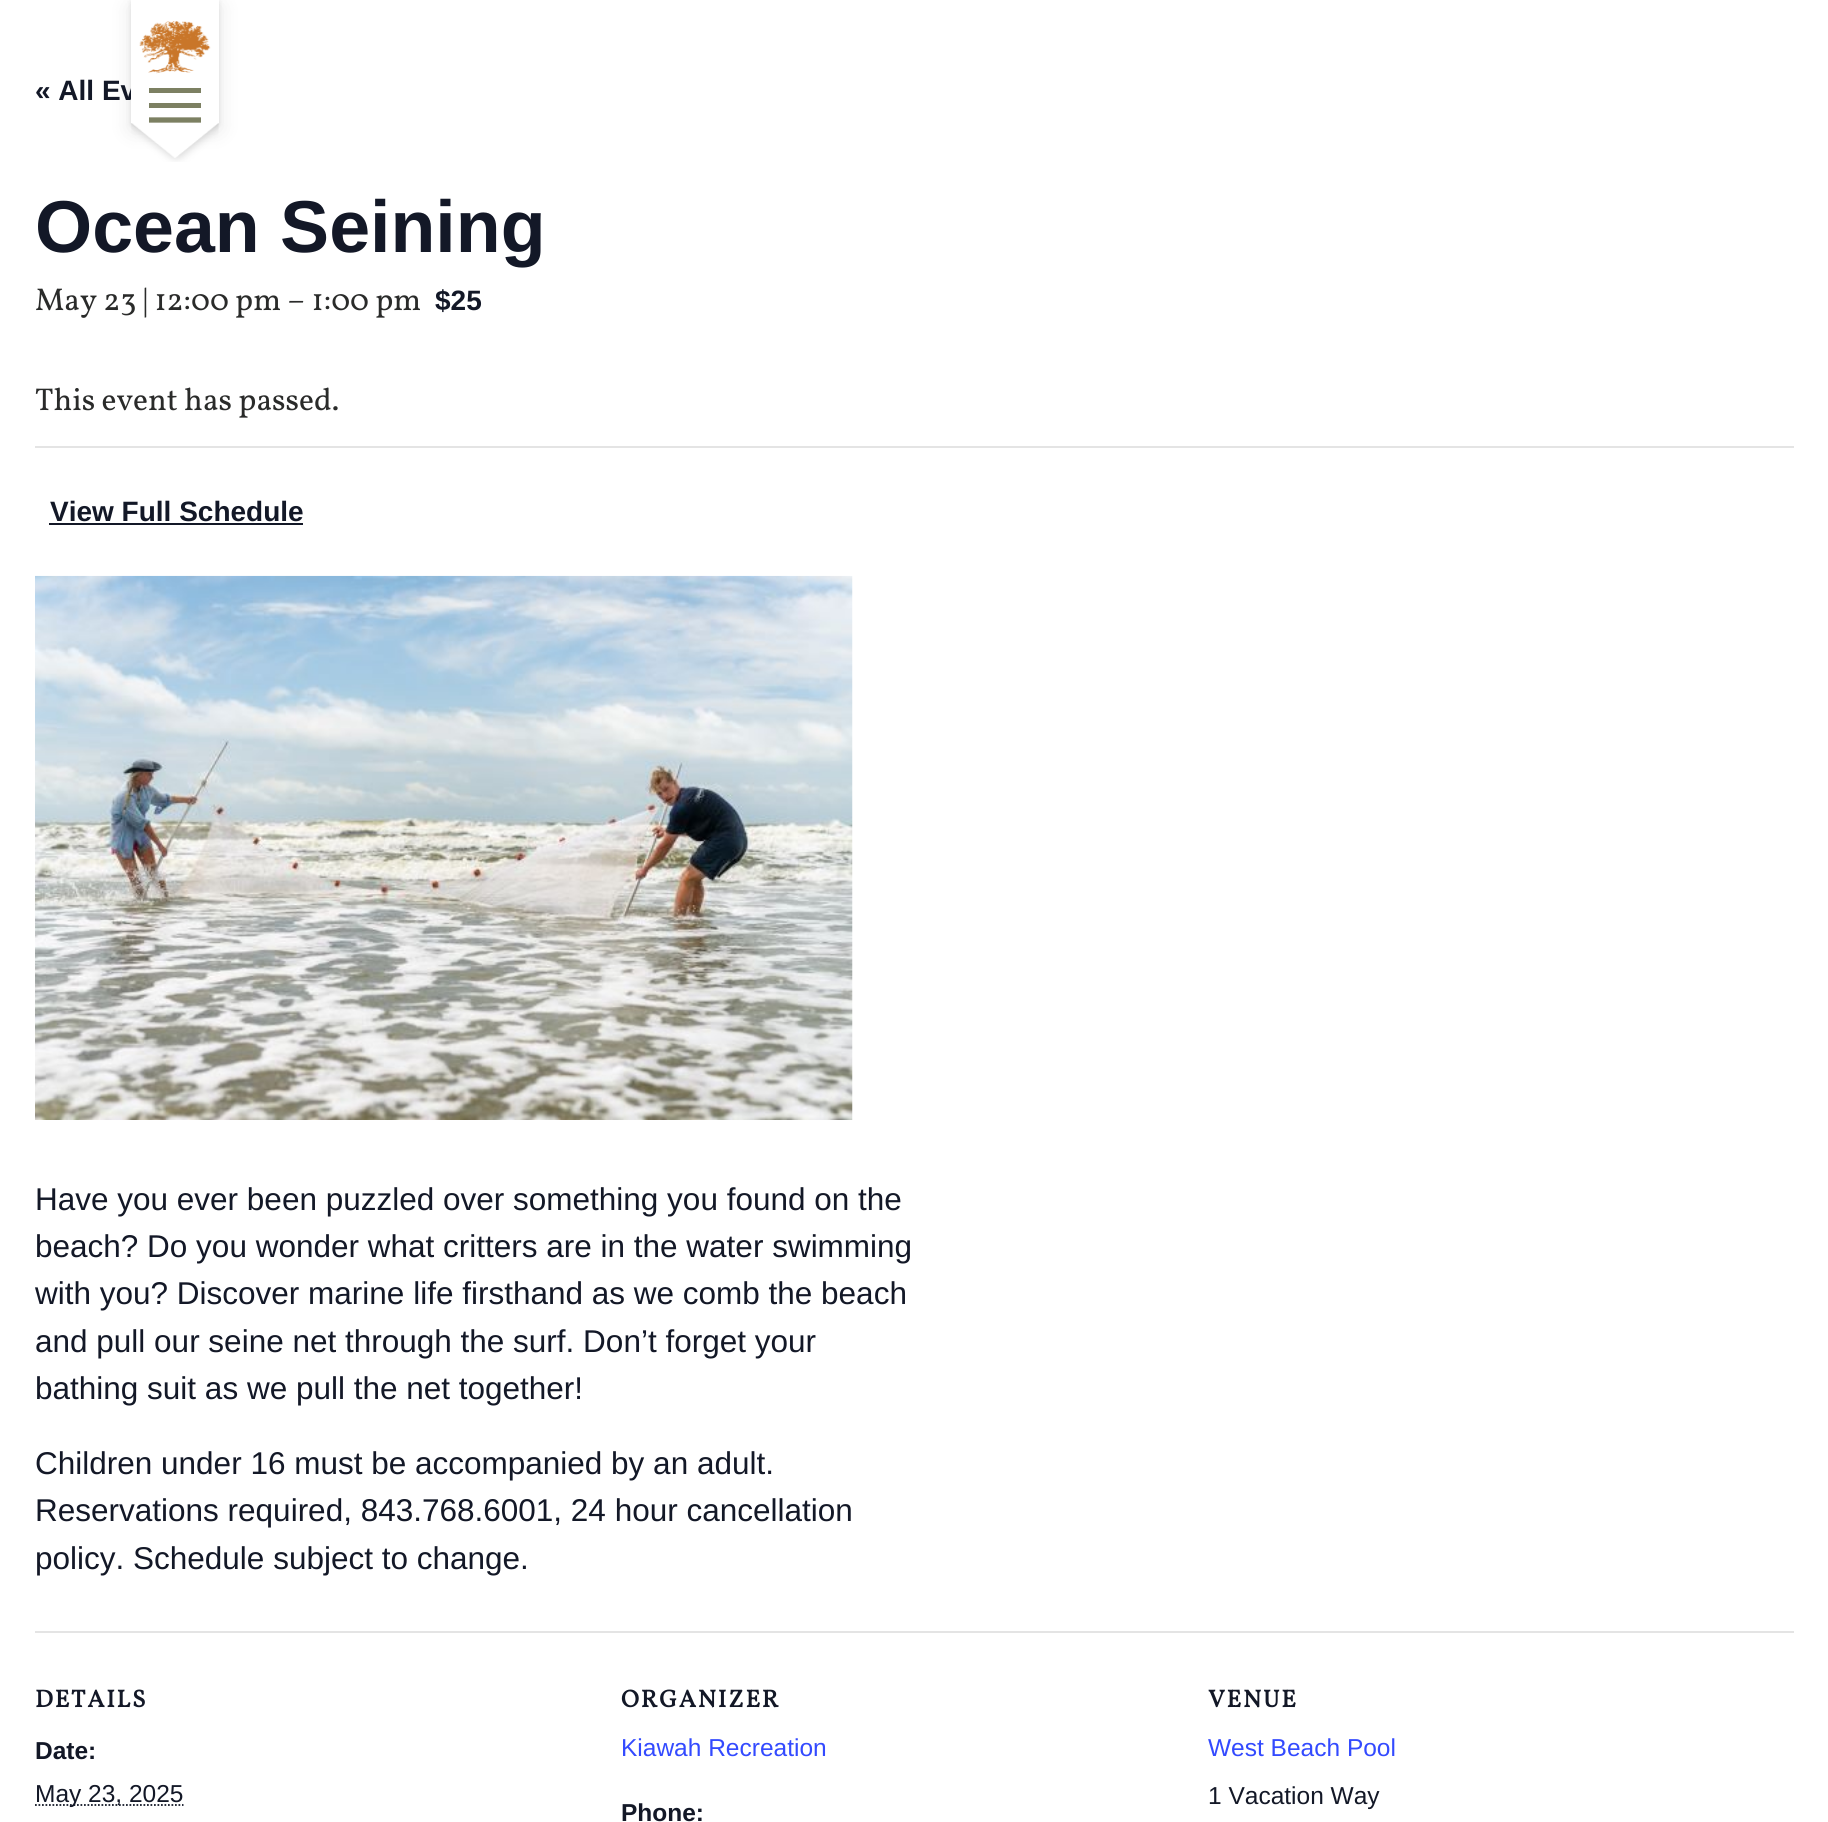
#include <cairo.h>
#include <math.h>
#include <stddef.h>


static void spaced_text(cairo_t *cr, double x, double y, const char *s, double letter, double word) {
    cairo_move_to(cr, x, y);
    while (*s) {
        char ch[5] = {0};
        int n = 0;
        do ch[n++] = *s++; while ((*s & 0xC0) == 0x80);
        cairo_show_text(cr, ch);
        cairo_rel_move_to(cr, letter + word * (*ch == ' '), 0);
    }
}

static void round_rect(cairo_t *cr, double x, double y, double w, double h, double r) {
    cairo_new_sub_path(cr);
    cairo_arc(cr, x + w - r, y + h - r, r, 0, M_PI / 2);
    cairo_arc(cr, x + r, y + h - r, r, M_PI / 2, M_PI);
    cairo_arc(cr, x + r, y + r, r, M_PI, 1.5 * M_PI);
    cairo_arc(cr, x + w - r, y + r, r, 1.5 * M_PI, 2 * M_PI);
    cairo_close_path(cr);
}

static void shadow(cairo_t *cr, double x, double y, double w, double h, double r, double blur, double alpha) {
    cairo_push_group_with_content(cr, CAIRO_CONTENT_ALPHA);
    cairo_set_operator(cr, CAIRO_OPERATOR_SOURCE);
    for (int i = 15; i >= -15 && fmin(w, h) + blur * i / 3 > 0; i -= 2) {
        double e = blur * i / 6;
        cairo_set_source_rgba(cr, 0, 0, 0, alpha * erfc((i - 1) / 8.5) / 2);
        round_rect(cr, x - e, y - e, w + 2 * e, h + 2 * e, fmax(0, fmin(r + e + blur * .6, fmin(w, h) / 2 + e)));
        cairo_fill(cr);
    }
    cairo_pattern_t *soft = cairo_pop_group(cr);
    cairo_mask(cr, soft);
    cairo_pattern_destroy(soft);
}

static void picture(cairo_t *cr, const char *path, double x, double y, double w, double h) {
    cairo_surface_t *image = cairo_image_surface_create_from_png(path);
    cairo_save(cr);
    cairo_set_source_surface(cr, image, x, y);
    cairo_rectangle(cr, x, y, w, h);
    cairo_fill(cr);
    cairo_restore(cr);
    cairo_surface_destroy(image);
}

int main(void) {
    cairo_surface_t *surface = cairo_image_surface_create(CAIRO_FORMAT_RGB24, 1828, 1822);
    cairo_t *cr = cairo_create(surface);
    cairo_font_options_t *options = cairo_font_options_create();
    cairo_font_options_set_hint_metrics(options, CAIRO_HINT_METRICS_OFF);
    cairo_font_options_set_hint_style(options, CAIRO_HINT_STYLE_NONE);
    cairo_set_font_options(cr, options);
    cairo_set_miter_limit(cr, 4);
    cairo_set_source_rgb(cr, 1, 1, 1);
    cairo_paint(cr);
    cairo_set_source_rgb(cr, 0, 0, 0);
    shadow(cr, 131, 2, 88, 122, 0, 2.5, 0.1);
    shadow(cr, 131, 7, 88, 123, 0, 10.5, 0.1);
    cairo_select_font_face(cr, "Liberation Sans", CAIRO_FONT_SLANT_NORMAL, CAIRO_FONT_WEIGHT_BOLD);
    cairo_set_font_size(cr, 28);
    cairo_set_source_rgb(cr, 0.078, 0.094, 0.153);
    cairo_move_to(cr, 35, 100);
    cairo_show_text(cr, "« All Ev");
    cairo_set_source_rgb(cr, 1, 1, 1);
    cairo_rectangle(cr, 131, 0, 88, 123);
    cairo_fill(cr);
    picture(cr, "img1.png", 139, 21, 72, 53);
    cairo_set_source_rgb(cr, 0.486, 0.502, 0.384);
    cairo_rectangle(cr, 149, 88, 52, 5);
    cairo_fill(cr);
    cairo_rectangle(cr, 149, 103, 52, 5);
    cairo_fill(cr);
    cairo_new_path(cr);
    cairo_move_to(cr, 149, 120);
    cairo_line_to(cr, 201, 120);
    cairo_set_line_width(cr, 5.3);
    cairo_stroke(cr);
    picture(cr, "img2.png", 131, 123, 88, 39);
    cairo_set_font_size(cr, 73.5);
    cairo_set_source_rgb(cr, 0.078, 0.094, 0.153);
    cairo_move_to(cr, 35, 252);
    cairo_show_text(cr, "Ocean Seining");
    cairo_select_font_face(cr, "Vollkorn", CAIRO_FONT_SLANT_NORMAL, CAIRO_FONT_WEIGHT_NORMAL);
    cairo_set_font_size(cr, 31.5);
    cairo_set_source_rgb(cr, 0.165, 0.169, 0.165);
    cairo_move_to(cr, 35, 310);
    cairo_show_text(cr, "May 23 | 12:00 pm – 1:00 pm");
    cairo_select_font_face(cr, "Liberation Sans", CAIRO_FONT_SLANT_NORMAL, CAIRO_FONT_WEIGHT_BOLD);
    cairo_set_font_size(cr, 28);
    cairo_set_source_rgb(cr, 0.078, 0.094, 0.153);
    cairo_move_to(cr, 435, 310);
    cairo_show_text(cr, "$25");
    cairo_set_source_rgb(cr, 0.894, 0.894, 0.894);
    cairo_rectangle(cr, 35, 446, 1759, 2);
    cairo_fill(cr);
    cairo_select_font_face(cr, "Vollkorn", CAIRO_FONT_SLANT_NORMAL, CAIRO_FONT_WEIGHT_NORMAL);
    cairo_set_font_size(cr, 31.5);
    cairo_set_source_rgb(cr, 0.165, 0.169, 0.165);
    cairo_move_to(cr, 35, 410);
    cairo_show_text(cr, "This event has passed.");
    cairo_select_font_face(cr, "Liberation Sans", CAIRO_FONT_SLANT_NORMAL, CAIRO_FONT_WEIGHT_BOLD);
    cairo_set_font_size(cr, 28);
    cairo_set_source_rgb(cr, 0.078, 0.094, 0.153);
    cairo_move_to(cr, 50, 521);
    cairo_show_text(cr, "View Full Schedule");
    cairo_rectangle(cr, 49, 523, 254, 2);
    cairo_fill(cr);
    picture(cr, "img3.png", 35, 575, 818, 545);
    cairo_select_font_face(cr, "Liberation Sans", CAIRO_FONT_SLANT_NORMAL, CAIRO_FONT_WEIGHT_NORMAL);
    cairo_set_font_size(cr, 31.5);
    cairo_move_to(cr, 35, 1210);
    cairo_show_text(cr, "Have you ever been puzzled over something you found on the");
    cairo_move_to(cr, 35, 1257);
    cairo_show_text(cr, "beach? Do you wonder what critters are in the water swimming");
    cairo_move_to(cr, 35, 1304);
    cairo_show_text(cr, "with you? Discover marine life firsthand as we comb the beach");
    cairo_move_to(cr, 35, 1352);
    cairo_show_text(cr, "and pull our seine net through the surf. Don’t forget your");
    cairo_move_to(cr, 35, 1399);
    cairo_show_text(cr, "bathing suit as we pull the net together!");
    cairo_move_to(cr, 35, 1474);
    cairo_show_text(cr, "Children under 16 must be accompanied by an adult.");
    cairo_move_to(cr, 35, 1521);
    cairo_show_text(cr, "Reservations required, 843.768.6001, 24 hour cancellation");
    cairo_move_to(cr, 35, 1569);
    cairo_show_text(cr, "policy. Schedule subject to change.");
    cairo_set_source_rgb(cr, 0.894, 0.894, 0.894);
    cairo_rectangle(cr, 35, 1631, 1759, 2);
    cairo_fill(cr);
    cairo_select_font_face(cr, "Vollkorn", CAIRO_FONT_SLANT_NORMAL, CAIRO_FONT_WEIGHT_BOLD);
    cairo_set_font_size(cr, 24.5);
    cairo_set_source_rgb(cr, 0.078, 0.094, 0.153);
    spaced_text(cr, 35, 1707, "DETAILS", 1.75, 0);
    cairo_select_font_face(cr, "Liberation Sans", CAIRO_FONT_SLANT_NORMAL, CAIRO_FONT_WEIGHT_BOLD);
    cairo_move_to(cr, 35, 1759);
    cairo_show_text(cr, "Date:");
    cairo_new_path(cr);
    cairo_move_to(cr, 35, 1805);
    cairo_line_to(cr, 183.5, 1805);
    cairo_set_line_width(cr, 1.8);
    cairo_set_dash(cr, (double[]){1.75, 1.75}, 2, 0);
    cairo_stroke(cr);
    cairo_select_font_face(cr, "Liberation Sans", CAIRO_FONT_SLANT_NORMAL, CAIRO_FONT_WEIGHT_NORMAL);
    cairo_move_to(cr, 35, 1802);
    cairo_show_text(cr, "May 23, 2025");
    cairo_select_font_face(cr, "Vollkorn", CAIRO_FONT_SLANT_NORMAL, CAIRO_FONT_WEIGHT_BOLD);
    spaced_text(cr, 621, 1707, "ORGANIZER", 1.75, 0);
    cairo_select_font_face(cr, "Liberation Sans", CAIRO_FONT_SLANT_NORMAL, CAIRO_FONT_WEIGHT_NORMAL);
    cairo_set_source_rgb(cr, 0.2, 0.29, 1);
    cairo_move_to(cr, 621, 1756);
    cairo_show_text(cr, "Kiawah Recreation");
    cairo_select_font_face(cr, "Liberation Sans", CAIRO_FONT_SLANT_NORMAL, CAIRO_FONT_WEIGHT_BOLD);
    cairo_set_source_rgb(cr, 0.078, 0.094, 0.153);
    cairo_move_to(cr, 621, 1821);
    cairo_show_text(cr, "Phone:");
    cairo_select_font_face(cr, "Vollkorn", CAIRO_FONT_SLANT_NORMAL, CAIRO_FONT_WEIGHT_BOLD);
    spaced_text(cr, 1208, 1707, "VENUE", 1.75, 0);
    cairo_select_font_face(cr, "Liberation Sans", CAIRO_FONT_SLANT_NORMAL, CAIRO_FONT_WEIGHT_NORMAL);
    cairo_set_source_rgb(cr, 0.2, 0.29, 1);
    cairo_move_to(cr, 1208, 1756);
    cairo_show_text(cr, "West Beach Pool");
    cairo_set_source_rgb(cr, 0.078, 0.094, 0.153);
    cairo_move_to(cr, 1208, 1804);
    cairo_show_text(cr, "1 Vacation Way");
    cairo_surface_write_to_png(surface, "page.png");
    cairo_font_options_destroy(options);
    cairo_destroy(cr);
    cairo_surface_destroy(surface);
    return 0;
}
